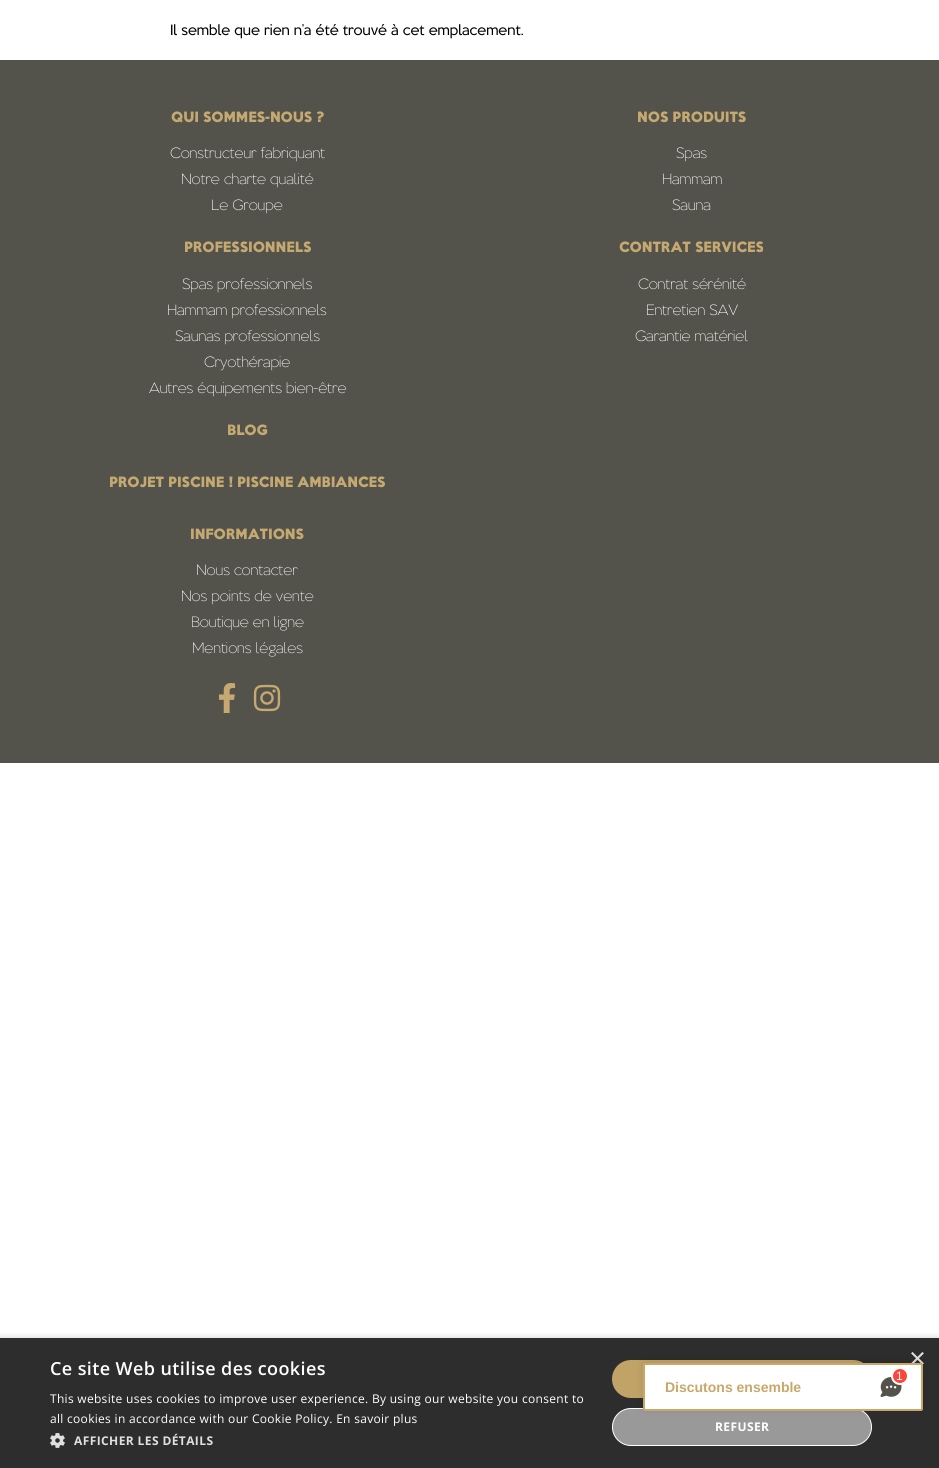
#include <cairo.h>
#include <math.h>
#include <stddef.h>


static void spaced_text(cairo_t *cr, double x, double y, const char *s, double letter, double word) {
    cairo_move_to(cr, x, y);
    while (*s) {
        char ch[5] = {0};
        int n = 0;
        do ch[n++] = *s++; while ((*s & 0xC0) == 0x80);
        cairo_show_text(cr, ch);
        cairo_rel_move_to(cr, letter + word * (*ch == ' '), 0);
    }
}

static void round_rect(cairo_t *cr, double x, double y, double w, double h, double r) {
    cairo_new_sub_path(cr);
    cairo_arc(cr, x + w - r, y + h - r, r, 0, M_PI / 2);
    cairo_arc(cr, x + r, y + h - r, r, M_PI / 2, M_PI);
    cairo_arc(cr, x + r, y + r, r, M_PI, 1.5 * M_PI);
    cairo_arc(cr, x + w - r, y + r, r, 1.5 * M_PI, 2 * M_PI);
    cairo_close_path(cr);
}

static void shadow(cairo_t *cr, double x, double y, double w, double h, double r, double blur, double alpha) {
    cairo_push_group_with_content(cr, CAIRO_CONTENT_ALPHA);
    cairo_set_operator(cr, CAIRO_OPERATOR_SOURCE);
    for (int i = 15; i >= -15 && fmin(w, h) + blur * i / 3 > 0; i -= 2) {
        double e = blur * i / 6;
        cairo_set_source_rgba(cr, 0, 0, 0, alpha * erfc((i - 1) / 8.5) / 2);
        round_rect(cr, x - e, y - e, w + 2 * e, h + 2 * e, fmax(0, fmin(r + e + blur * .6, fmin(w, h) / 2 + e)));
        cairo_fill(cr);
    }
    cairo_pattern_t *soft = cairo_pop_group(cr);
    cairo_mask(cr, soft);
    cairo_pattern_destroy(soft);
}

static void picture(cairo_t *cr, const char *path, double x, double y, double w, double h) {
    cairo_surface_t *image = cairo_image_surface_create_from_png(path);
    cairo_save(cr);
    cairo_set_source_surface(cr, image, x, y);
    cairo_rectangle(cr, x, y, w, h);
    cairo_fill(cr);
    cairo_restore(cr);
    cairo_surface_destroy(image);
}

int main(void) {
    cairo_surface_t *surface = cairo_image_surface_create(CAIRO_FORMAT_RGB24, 939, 1468);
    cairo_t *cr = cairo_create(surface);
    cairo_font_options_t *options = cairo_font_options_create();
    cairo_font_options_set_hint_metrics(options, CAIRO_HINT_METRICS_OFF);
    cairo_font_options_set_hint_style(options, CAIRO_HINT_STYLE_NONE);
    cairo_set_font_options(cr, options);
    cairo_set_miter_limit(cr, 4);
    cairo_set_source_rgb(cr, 1, 1, 1);
    cairo_paint(cr);
    cairo_select_font_face(cr, "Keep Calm", CAIRO_FONT_SLANT_NORMAL, CAIRO_FONT_WEIGHT_NORMAL);
    cairo_set_font_size(cr, 13);
    cairo_set_source_rgb(cr, 0, 0, 0);
    cairo_move_to(cr, 170, 35);
    cairo_show_text(cr, "Il semble que rien n’a été trouvé à cet emplacement.");
    cairo_set_source_rgb(cr, 0.325, 0.325, 0.298);
    cairo_rectangle(cr, 0, 60, 939, 703);
    cairo_fill(cr);
    cairo_select_font_face(cr, "Keep Calm Black", CAIRO_FONT_SLANT_NORMAL, CAIRO_FONT_WEIGHT_NORMAL);
    cairo_set_source_rgb(cr, 0.773, 0.663, 0.443);
    cairo_move_to(cr, 171, 122);
    cairo_show_text(cr, "QUI SOMMES-NOUS ?");
    cairo_select_font_face(cr, "Keep Calm Light", CAIRO_FONT_SLANT_NORMAL, CAIRO_FONT_WEIGHT_NORMAL);
    cairo_set_source_rgb(cr, 1, 1, 1);
    cairo_move_to(cr, 170, 158);
    cairo_show_text(cr, "Constructeur fabriquant");
    cairo_move_to(cr, 181, 184);
    cairo_show_text(cr, "Notre charte qualité");
    cairo_move_to(cr, 211, 210);
    cairo_show_text(cr, "Le Groupe");
    cairo_select_font_face(cr, "Keep Calm Black", CAIRO_FONT_SLANT_NORMAL, CAIRO_FONT_WEIGHT_NORMAL);
    cairo_set_source_rgb(cr, 0.773, 0.663, 0.443);
    cairo_move_to(cr, 637, 122);
    cairo_show_text(cr, "NOS PRODUITS");
    cairo_select_font_face(cr, "Keep Calm Light", CAIRO_FONT_SLANT_NORMAL, CAIRO_FONT_WEIGHT_NORMAL);
    cairo_set_source_rgb(cr, 1, 1, 1);
    cairo_move_to(cr, 676, 158);
    cairo_show_text(cr, "Spas");
    cairo_move_to(cr, 662, 184);
    cairo_show_text(cr, "Hammam");
    cairo_move_to(cr, 672, 210);
    cairo_show_text(cr, "Sauna");
    cairo_select_font_face(cr, "Keep Calm Black", CAIRO_FONT_SLANT_NORMAL, CAIRO_FONT_WEIGHT_NORMAL);
    cairo_set_source_rgb(cr, 0.773, 0.663, 0.443);
    cairo_move_to(cr, 184, 252);
    cairo_show_text(cr, "PROFESSIONNELS");
    cairo_select_font_face(cr, "Keep Calm Light", CAIRO_FONT_SLANT_NORMAL, CAIRO_FONT_WEIGHT_NORMAL);
    cairo_set_source_rgb(cr, 1, 1, 1);
    cairo_move_to(cr, 182, 289);
    cairo_show_text(cr, "Spas professionnels");
    cairo_move_to(cr, 167, 315);
    cairo_show_text(cr, "Hammam professionnels");
    cairo_move_to(cr, 175, 341);
    cairo_show_text(cr, "Saunas professionnels");
    cairo_move_to(cr, 204, 367);
    cairo_show_text(cr, "Cryothérapie");
    cairo_move_to(cr, 149, 393);
    cairo_show_text(cr, "Autres équipements bien-être");
    cairo_select_font_face(cr, "Keep Calm Black", CAIRO_FONT_SLANT_NORMAL, CAIRO_FONT_WEIGHT_NORMAL);
    cairo_set_source_rgb(cr, 0.773, 0.663, 0.443);
    cairo_move_to(cr, 619, 252);
    cairo_show_text(cr, "CONTRAT SERVICES");
    cairo_select_font_face(cr, "Keep Calm Light", CAIRO_FONT_SLANT_NORMAL, CAIRO_FONT_WEIGHT_NORMAL);
    cairo_set_source_rgb(cr, 1, 1, 1);
    cairo_move_to(cr, 638, 289);
    cairo_show_text(cr, "Contrat sérénité");
    cairo_move_to(cr, 646, 315);
    cairo_show_text(cr, "Entretien SAV");
    cairo_move_to(cr, 635, 341);
    cairo_show_text(cr, "Garantie matériel");
    cairo_select_font_face(cr, "Keep Calm Black", CAIRO_FONT_SLANT_NORMAL, CAIRO_FONT_WEIGHT_NORMAL);
    cairo_set_source_rgb(cr, 0.773, 0.663, 0.443);
    cairo_move_to(cr, 227, 435);
    cairo_show_text(cr, "BLOG");
    cairo_move_to(cr, 109, 487);
    cairo_show_text(cr, "PROJET PISCINE ! PISCINE AMBIANCES");
    cairo_move_to(cr, 190, 539);
    cairo_show_text(cr, "INFORMATIONS");
    cairo_select_font_face(cr, "Keep Calm Light", CAIRO_FONT_SLANT_NORMAL, CAIRO_FONT_WEIGHT_NORMAL);
    cairo_set_source_rgb(cr, 1, 1, 1);
    cairo_move_to(cr, 196, 575);
    cairo_show_text(cr, "Nous contacter");
    cairo_move_to(cr, 181, 601);
    cairo_show_text(cr, "Nos points de vente");
    cairo_move_to(cr, 191, 627);
    cairo_show_text(cr, "Boutique en ligne");
    cairo_move_to(cr, 192, 653);
    cairo_show_text(cr, "Mentions légales");
    picture(cr, "img1.png", 218, 683, 18, 30);
    picture(cr, "img2.png", 253, 684, 28, 28);
    cairo_set_source_rgb(cr, 0, 0, 0);
    shadow(cr, 1, 1340, 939, 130, 0, 4, 0.35);
    cairo_set_source_rgb(cr, 0.176, 0.176, 0.176);
    cairo_rectangle(cr, 0, 1338, 939, 130);
    cairo_fill(cr);
    cairo_select_font_face(cr, "Liberation Sans", CAIRO_FONT_SLANT_NORMAL, CAIRO_FONT_WEIGHT_NORMAL);
    cairo_set_font_size(cr, 29);
    cairo_set_source_rgb(cr, 0.878, 0.878, 0.878);
    cairo_move_to(cr, 909, 1368);
    cairo_show_text(cr, "×");
    cairo_select_font_face(cr, "Open Sans SemiBold", CAIRO_FONT_SLANT_NORMAL, CAIRO_FONT_WEIGHT_NORMAL);
    cairo_set_font_size(cr, 18);
    cairo_set_source_rgb(cr, 1, 1, 1);
    spaced_text(cr, 50, 1375, "Ce site Web utilise des cookies", 0.4, 0);
    cairo_select_font_face(cr, "Open Sans", CAIRO_FONT_SLANT_NORMAL, CAIRO_FONT_WEIGHT_NORMAL);
    cairo_set_font_size(cr, 12);
    spaced_text(cr, 50, 1403, "This website uses cookies to improve user experience. By using our website you consent to", 0.3, 0);
    spaced_text(cr, 50, 1423, "all cookies in accordance with our Cookie Policy. En savoir plus", 0.3, 0);
    picture(cr, "img3.png", 50, 1433, 15, 15);
    cairo_select_font_face(cr, "Open Sans", CAIRO_FONT_SLANT_NORMAL, CAIRO_FONT_WEIGHT_BOLD);
    cairo_set_source_rgb(cr, 0.878, 0.878, 0.878);
    spaced_text(cr, 74, 1445, "AFFICHER LES DÉTAILS", 0.4, 0);
    cairo_set_source_rgb(cr, 0.757, 0.639, 0.404);
    round_rect(cr, 612, 1360, 260, 38, 19);
    cairo_fill(cr);
    cairo_set_source_rgb(cr, 0.6, 0.6, 0.6);
    round_rect(cr, 612.5, 1408.5, 259, 37, 18.5);
    cairo_fill_preserve(cr);
    cairo_set_source_rgb(cr, 1, 1, 1);
    cairo_set_line_width(cr, 1);
    cairo_stroke(cr);
    spaced_text(cr, 715, 1431, "REFUSER", 0.4, 0);
    cairo_set_source_rgb(cr, 0, 0, 0);
    shadow(cr, 643, 1361, 280, 48, 2, 4, 0.1);
    cairo_set_source_rgb(cr, 1, 1, 1);
    round_rect(cr, 644, 1364, 278, 46, 1);
    cairo_fill_preserve(cr);
    cairo_set_source_rgb(cr, 0.792, 0.655, 0.412);
    cairo_set_line_width(cr, 2);
    cairo_stroke(cr);
    picture(cr, "img4.png", 880, 1377, 22, 20);
    cairo_set_source_rgb(cr, 1, 0.267, 0.227);
    cairo_arc(cr, 900, 1376, 8, 0, 2 * M_PI);
    cairo_fill_preserve(cr);
    cairo_set_source_rgb(cr, 1, 1, 1);
    cairo_stroke(cr);
    cairo_select_font_face(cr, "Liberation Sans", CAIRO_FONT_SLANT_NORMAL, CAIRO_FONT_WEIGHT_NORMAL);
    cairo_move_to(cr, 896, 1380);
    cairo_show_text(cr, "1");
    cairo_select_font_face(cr, "Liberation Sans", CAIRO_FONT_SLANT_NORMAL, CAIRO_FONT_WEIGHT_BOLD);
    cairo_set_font_size(cr, 14);
    cairo_set_source_rgb(cr, 0.792, 0.655, 0.412);
    cairo_move_to(cr, 665, 1392);
    cairo_show_text(cr, "Discutons ensemble");
    cairo_surface_write_to_png(surface, "page.png");
    cairo_font_options_destroy(options);
    cairo_destroy(cr);
    cairo_surface_destroy(surface);
    return 0;
}
